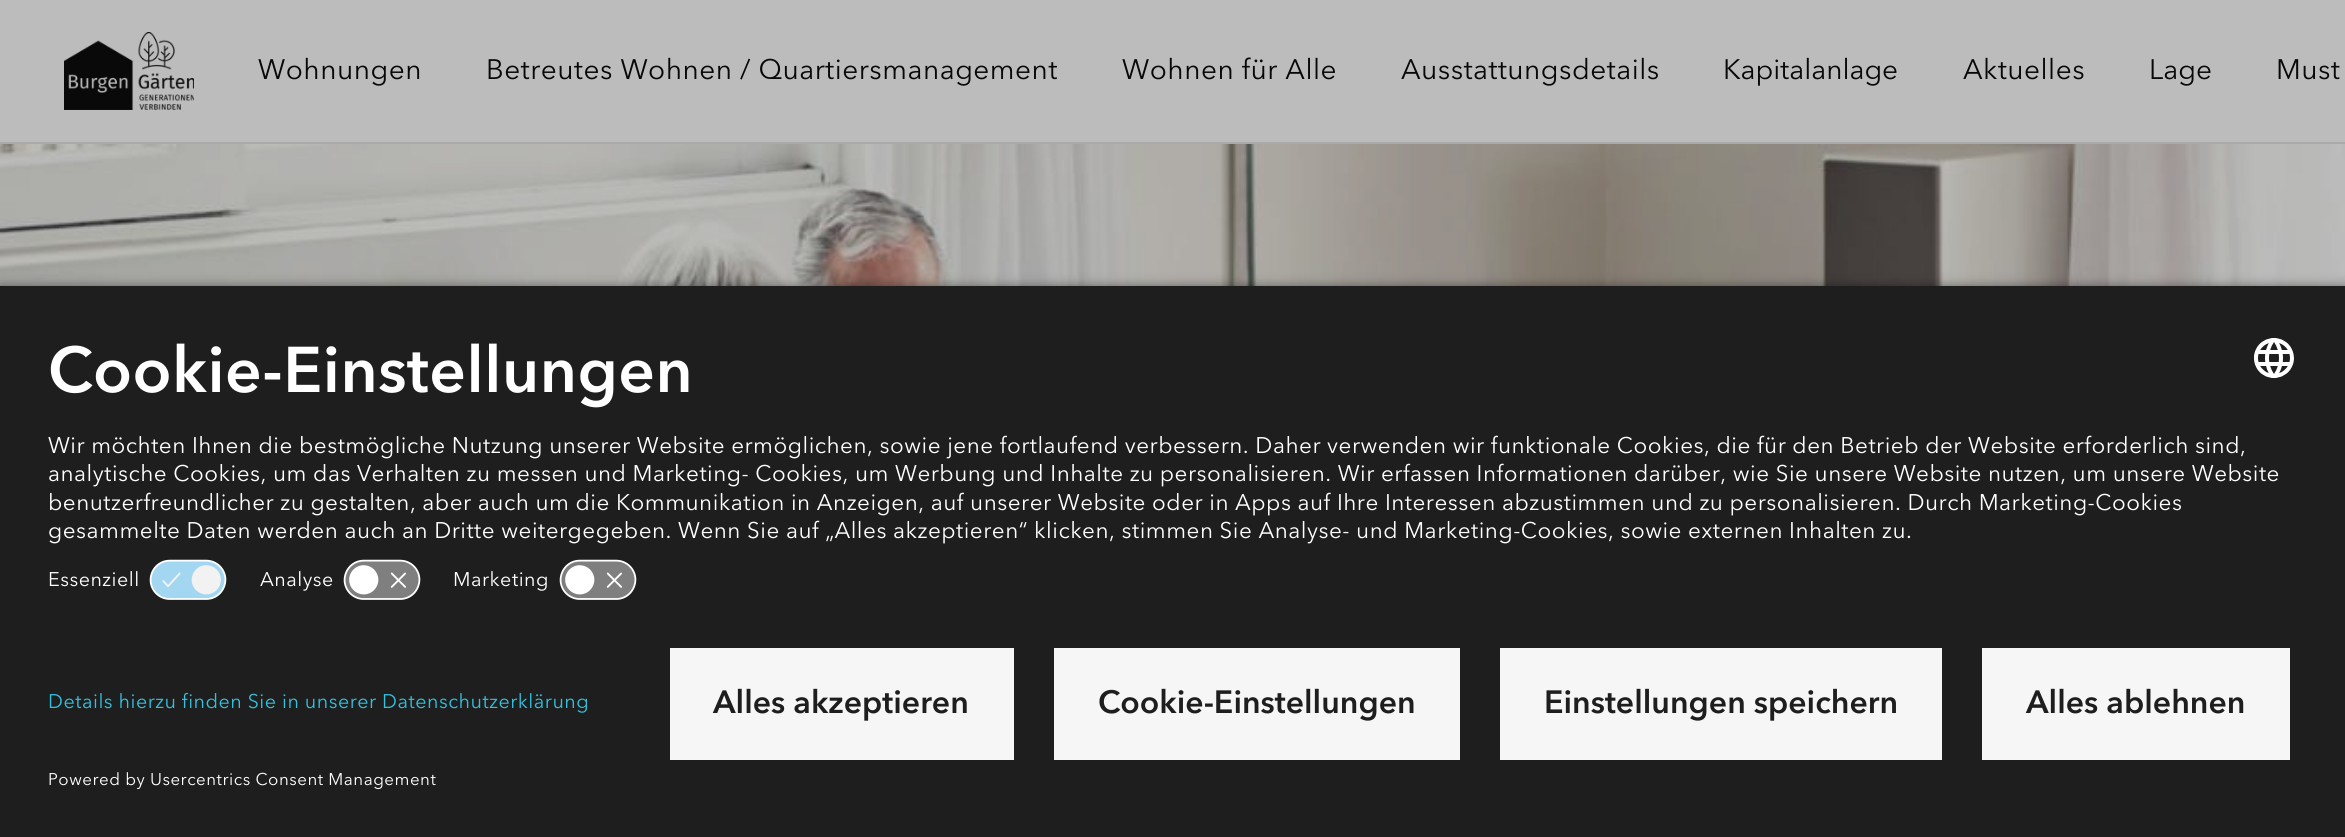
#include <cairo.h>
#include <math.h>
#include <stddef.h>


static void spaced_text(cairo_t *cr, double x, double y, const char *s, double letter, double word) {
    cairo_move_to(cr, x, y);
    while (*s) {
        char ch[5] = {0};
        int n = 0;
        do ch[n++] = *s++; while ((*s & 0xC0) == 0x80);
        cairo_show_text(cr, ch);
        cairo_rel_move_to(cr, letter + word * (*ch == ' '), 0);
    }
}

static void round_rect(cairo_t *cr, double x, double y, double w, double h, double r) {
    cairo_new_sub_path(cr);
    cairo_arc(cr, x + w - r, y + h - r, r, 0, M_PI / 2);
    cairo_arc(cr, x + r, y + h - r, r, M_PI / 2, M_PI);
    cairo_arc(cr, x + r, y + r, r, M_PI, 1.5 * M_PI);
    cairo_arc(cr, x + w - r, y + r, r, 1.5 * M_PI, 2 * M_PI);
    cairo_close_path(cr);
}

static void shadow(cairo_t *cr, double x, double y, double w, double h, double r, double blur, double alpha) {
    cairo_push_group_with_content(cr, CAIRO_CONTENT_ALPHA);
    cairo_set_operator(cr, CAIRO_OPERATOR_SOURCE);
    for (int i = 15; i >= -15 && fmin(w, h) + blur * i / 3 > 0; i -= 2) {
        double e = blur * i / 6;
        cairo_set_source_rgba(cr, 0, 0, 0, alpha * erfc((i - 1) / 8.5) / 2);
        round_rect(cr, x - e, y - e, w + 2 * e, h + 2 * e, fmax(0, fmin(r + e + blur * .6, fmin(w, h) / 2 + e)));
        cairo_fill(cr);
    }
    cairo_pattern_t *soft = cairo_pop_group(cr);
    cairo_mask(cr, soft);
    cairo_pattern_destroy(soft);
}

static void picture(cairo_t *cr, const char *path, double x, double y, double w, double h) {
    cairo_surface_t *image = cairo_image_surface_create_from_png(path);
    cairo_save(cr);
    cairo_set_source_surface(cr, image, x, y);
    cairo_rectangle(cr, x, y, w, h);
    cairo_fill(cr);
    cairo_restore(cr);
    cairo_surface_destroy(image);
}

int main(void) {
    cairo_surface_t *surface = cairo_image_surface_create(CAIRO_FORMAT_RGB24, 2345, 837);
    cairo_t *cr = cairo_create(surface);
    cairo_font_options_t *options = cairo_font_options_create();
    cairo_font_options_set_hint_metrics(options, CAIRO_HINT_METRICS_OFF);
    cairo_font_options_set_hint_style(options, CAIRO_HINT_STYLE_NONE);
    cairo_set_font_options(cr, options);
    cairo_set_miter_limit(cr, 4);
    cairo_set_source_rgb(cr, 0.737, 0.737, 0.737);
    cairo_paint(cr);
    cairo_set_source_rgb(cr, 0.667, 0.667, 0.667);
    cairo_rectangle(cr, 0, 142, 2345, 2);
    cairo_fill(cr);
    picture(cr, "img1.png", 64, 32, 130, 78);
    cairo_select_font_face(cr, "Avenir Next", CAIRO_FONT_SLANT_NORMAL, CAIRO_FONT_WEIGHT_NORMAL);
    cairo_set_font_size(cr, 28);
    cairo_set_source_rgb(cr, 0.035, 0.035, 0.035);
    spaced_text(cr, 258, 79, "Wohnungen", 0.5, 0);
    spaced_text(cr, 486, 79, "Betreutes Wohnen / Quartiersmanagement", 0.5, 0);
    spaced_text(cr, 1122, 79, "Wohnen für Alle", 0.5, 0);
    spaced_text(cr, 1401, 79, "Ausstattungsdetails", 0.5, 0);
    cairo_move_to(cr, 1723, 79);
    cairo_show_text(cr, "Kapitalanlage");
    spaced_text(cr, 1963, 79, "Aktuelles", 0.5, 0);
    cairo_move_to(cr, 2149, 79);
    cairo_show_text(cr, "Lage");
    spaced_text(cr, 2276, 79, "Must", 0.5, 0);
    picture(cr, "img2.png", 0, 144, 2345, 142);
    cairo_set_source_rgb(cr, 0, 0, 0);
    shadow(cr, 0, 290, 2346, 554, 0, 7, 0.8);
    cairo_set_source_rgb(cr, 0.118, 0.118, 0.118);
    cairo_rectangle(cr, 0, 286, 2345, 551);
    cairo_fill(cr);
    cairo_select_font_face(cr, "Avenir Next", CAIRO_FONT_SLANT_NORMAL, CAIRO_FONT_WEIGHT_BOLD);
    cairo_set_font_size(cr, 64);
    cairo_set_source_rgb(cr, 1, 1, 1);
    spaced_text(cr, 48, 392, "Cookie-Einstellungen", 0.5, 0);
    picture(cr, "img3.png", 2254, 338, 40, 40);
    cairo_select_font_face(cr, "Avenir Next", CAIRO_FONT_SLANT_NORMAL, CAIRO_FONT_WEIGHT_NORMAL);
    cairo_set_font_size(cr, 22.5);
    spaced_text(cr, 48, 453, "Wir möchten Ihnen die bestmögliche Nutzung unserer Website ermöglichen, sowie jene fortlaufend verbessern. Daher verwenden wir funktionale Cookies, die für den Betrieb der Website erforderlich sind,", 0.5, 0);
    spaced_text(cr, 48, 481, "analytische Cookies, um das Verhalten zu messen und Marketing- Cookies, um Werbung und Inhalte zu personalisieren. Wir erfassen Informationen darüber, wie Sie unsere Website nutzen, um unsere Website", 0.5, 0);
    spaced_text(cr, 48, 510, "benutzerfreundlicher zu gestalten, aber auch um die Kommunikation in Anzeigen, auf unserer Website oder in Apps auf Ihre Interessen abzustimmen und zu personalisieren. Durch Marketing-Cookies", 0.5, 0);
    spaced_text(cr, 48, 538, "gesammelte Daten werden auch an Dritte weitergegeben. Wenn Sie auf „Alles akzeptieren“ klicken, stimmen Sie Analyse- und Marketing-Cookies, sowie externen Inhalten zu.", 0.5, 0);
    cairo_set_font_size(cr, 19.7);
    spaced_text(cr, 48, 586, "Essenziell", 0.5, 0);
    picture(cr, "img4.png", 149, 559, 78, 41);
    spaced_text(cr, 260, 586, "Analyse", 0.5, 0);
    picture(cr, "img5.png", 343, 559, 78, 41);
    spaced_text(cr, 453, 586, "Marketing", 0.5, 0);
    picture(cr, "img5.png", 559, 559, 78, 41);
    cairo_set_source_rgb(cr, 0.196, 0.757, 0.871);
    spaced_text(cr, 48, 708, "Details hierzu finden Sie in unserer Datenschutzerklärung", 0.5, 0);
    cairo_set_font_size(cr, 16.9);
    cairo_set_source_rgb(cr, 1, 1, 1);
    spaced_text(cr, 48, 785, "Powered by Usercentrics Consent Management", 0.5, 0);
    cairo_set_source_rgb(cr, 0.961, 0.961, 0.961);
    cairo_rectangle(cr, 670, 648, 344, 112);
    cairo_fill(cr);
    cairo_select_font_face(cr, "Avenir Next", CAIRO_FONT_SLANT_NORMAL, CAIRO_FONT_WEIGHT_BOLD);
    cairo_set_font_size(cr, 32);
    cairo_set_source_rgb(cr, 0.118, 0.118, 0.118);
    cairo_move_to(cr, 713, 713);
    cairo_show_text(cr, "Alles akzeptieren");
    cairo_set_source_rgb(cr, 0.961, 0.961, 0.961);
    cairo_rectangle(cr, 1054, 648, 406, 112);
    cairo_fill(cr);
    cairo_set_source_rgb(cr, 0.118, 0.118, 0.118);
    cairo_move_to(cr, 1098, 713);
    cairo_show_text(cr, "Cookie-Einstellungen");
    cairo_set_source_rgb(cr, 0.961, 0.961, 0.961);
    cairo_rectangle(cr, 1500, 648, 442, 112);
    cairo_fill(cr);
    cairo_set_source_rgb(cr, 0.118, 0.118, 0.118);
    cairo_move_to(cr, 1544, 713);
    cairo_show_text(cr, "Einstellungen speichern");
    cairo_set_source_rgb(cr, 0.961, 0.961, 0.961);
    cairo_rectangle(cr, 1982, 648, 308, 112);
    cairo_fill(cr);
    cairo_set_source_rgb(cr, 0.118, 0.118, 0.118);
    cairo_move_to(cr, 2026, 713);
    cairo_show_text(cr, "Alles ablehnen");
    cairo_surface_write_to_png(surface, "page.png");
    cairo_font_options_destroy(options);
    cairo_destroy(cr);
    cairo_surface_destroy(surface);
    return 0;
}
